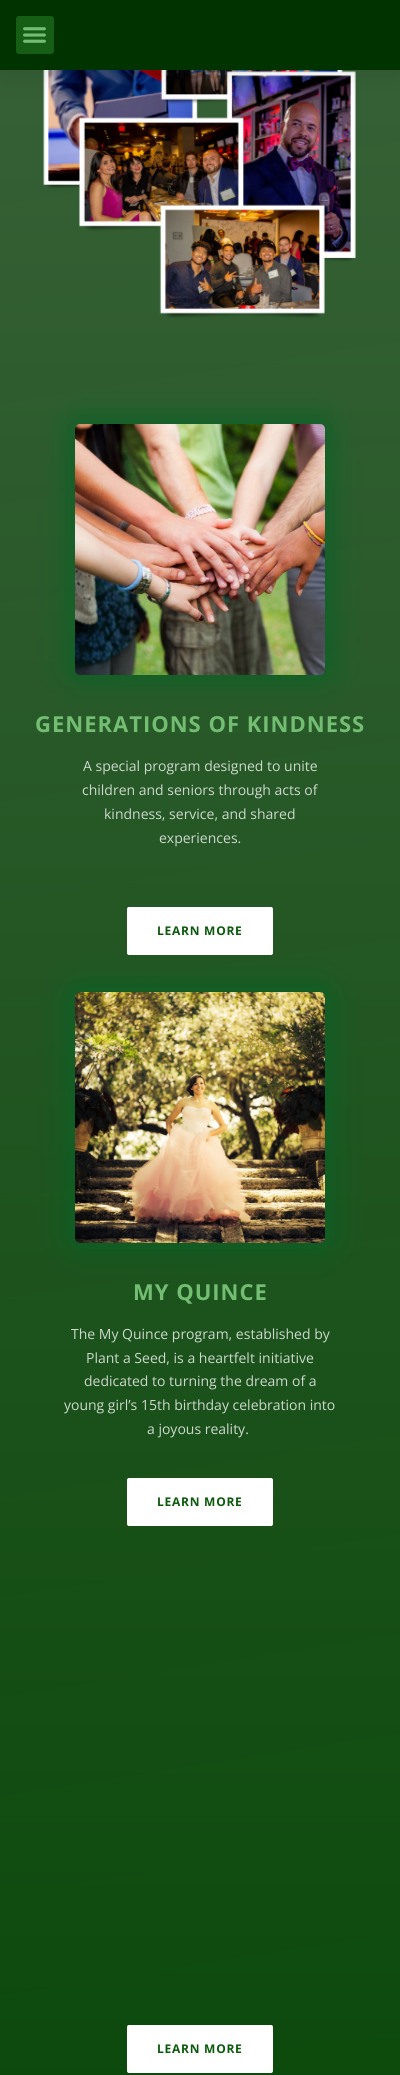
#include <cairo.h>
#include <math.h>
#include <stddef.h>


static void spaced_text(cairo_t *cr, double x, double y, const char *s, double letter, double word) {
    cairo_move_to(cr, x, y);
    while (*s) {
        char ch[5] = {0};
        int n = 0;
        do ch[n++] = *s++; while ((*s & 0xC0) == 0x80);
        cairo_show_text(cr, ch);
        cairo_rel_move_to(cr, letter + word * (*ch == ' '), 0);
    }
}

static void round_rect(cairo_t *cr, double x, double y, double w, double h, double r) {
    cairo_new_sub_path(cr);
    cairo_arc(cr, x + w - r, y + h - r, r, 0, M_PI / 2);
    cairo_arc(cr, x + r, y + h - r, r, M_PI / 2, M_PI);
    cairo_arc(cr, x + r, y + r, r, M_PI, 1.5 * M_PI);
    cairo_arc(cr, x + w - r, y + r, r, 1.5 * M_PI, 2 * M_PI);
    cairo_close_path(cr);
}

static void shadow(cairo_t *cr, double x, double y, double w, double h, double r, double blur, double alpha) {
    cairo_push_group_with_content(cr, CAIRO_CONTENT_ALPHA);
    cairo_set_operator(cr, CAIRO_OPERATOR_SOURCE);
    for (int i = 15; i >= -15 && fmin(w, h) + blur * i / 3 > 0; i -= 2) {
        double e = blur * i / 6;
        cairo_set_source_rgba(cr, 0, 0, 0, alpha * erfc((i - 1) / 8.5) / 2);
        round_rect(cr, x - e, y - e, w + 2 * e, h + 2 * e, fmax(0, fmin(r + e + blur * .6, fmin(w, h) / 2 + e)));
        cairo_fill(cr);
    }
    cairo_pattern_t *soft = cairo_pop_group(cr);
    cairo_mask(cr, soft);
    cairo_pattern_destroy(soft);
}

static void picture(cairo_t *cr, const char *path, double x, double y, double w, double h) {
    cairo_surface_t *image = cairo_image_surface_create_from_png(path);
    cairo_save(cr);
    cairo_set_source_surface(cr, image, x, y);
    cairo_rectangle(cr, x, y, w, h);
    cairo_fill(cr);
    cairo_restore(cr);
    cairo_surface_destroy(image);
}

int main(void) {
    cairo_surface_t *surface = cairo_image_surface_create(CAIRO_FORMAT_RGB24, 400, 2075);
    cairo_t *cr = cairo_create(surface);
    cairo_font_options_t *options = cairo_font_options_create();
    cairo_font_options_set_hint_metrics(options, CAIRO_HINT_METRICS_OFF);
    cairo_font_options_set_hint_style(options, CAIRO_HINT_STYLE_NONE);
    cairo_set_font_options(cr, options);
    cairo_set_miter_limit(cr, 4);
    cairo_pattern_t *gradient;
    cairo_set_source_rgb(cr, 1, 1, 1);
    cairo_paint(cr);
    gradient = cairo_pattern_create_linear(200, -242, 200, 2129);
    cairo_pattern_add_color_stop_rgba(gradient, 0, 0.451, 0.745, 0.451, 1);
    cairo_pattern_add_color_stop_rgba(gradient, 1, 0.086, 0.369, 0.086, 1);
    cairo_set_source(cr, gradient);
    cairo_pattern_destroy(gradient);
    cairo_rectangle(cr, 0, 70, 400, 2005);
    cairo_fill(cr);
    gradient = cairo_pattern_create_linear(12, -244, 388, 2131);
    cairo_pattern_add_color_stop_rgba(gradient, 0, 0, 0, 0, 0.48);
    cairo_pattern_add_color_stop_rgba(gradient, 1, 0.004, 0.2, 0.004, 0.48);
    cairo_set_source(cr, gradient);
    cairo_pattern_destroy(gradient);
    cairo_rectangle(cr, 0, 70, 400, 2005);
    cairo_fill(cr);
    picture(cr, "img2.png", 43, 70, 313, 248);
    cairo_set_source_rgb(cr, 0, 0, 0);
    shadow(cr, 0, 5, 400, 70, 0, 15, 0.1);
    cairo_set_source_rgb(cr, 0.004, 0.2, 0.004);
    cairo_rectangle(cr, 0, 0, 400, 70);
    cairo_fill(cr);
    cairo_set_source_rgb(cr, 0.086, 0.369, 0.086);
    round_rect(cr, 16, 16, 38, 38, 3);
    cairo_fill(cr);
    picture(cr, "img1.png", 23, 27, 23, 16);
    cairo_set_source_rgb(cr, 0.02, 0.388, 0.145);
    shadow(cr, 72, 421, 256, 257, 8, 15.5, 1);
    picture(cr, "img3.png", 75, 424, 250, 251);
    cairo_select_font_face(cr, "Open Sans", CAIRO_FONT_SLANT_NORMAL, CAIRO_FONT_WEIGHT_BOLD);
    cairo_set_font_size(cr, 22);
    cairo_set_source_rgb(cr, 0.451, 0.745, 0.451);
    spaced_text(cr, 35, 732, "GENERATIONS OF KINDNESS", 1, 0);
    cairo_select_font_face(cr, "Open Sans", CAIRO_FONT_SLANT_NORMAL, CAIRO_FONT_WEIGHT_NORMAL);
    cairo_set_font_size(cr, 14);
    cairo_set_source_rgb(cr, 0.804, 0.847, 0.804);
    cairo_move_to(cr, 83, 771);
    cairo_show_text(cr, "A special program designed to unite");
    cairo_move_to(cr, 82, 795);
    cairo_show_text(cr, "children and seniors through acts of");
    cairo_move_to(cr, 104, 819);
    cairo_show_text(cr, "kindness, service, and shared");
    cairo_move_to(cr, 159, 843);
    cairo_show_text(cr, "experiences.");
    cairo_set_source_rgb(cr, 1, 1, 1);
    round_rect(cr, 127, 907, 146, 48, 2);
    cairo_fill(cr);
    cairo_select_font_face(cr, "Open Sans", CAIRO_FONT_SLANT_NORMAL, CAIRO_FONT_WEIGHT_BOLD);
    cairo_set_font_size(cr, 12);
    cairo_set_source_rgb(cr, 0.043, 0.353, 0.043);
    spaced_text(cr, 157, 935, "LEARN MORE", 0.75, 0);
    cairo_set_source_rgb(cr, 0.02, 0.388, 0.145);
    shadow(cr, 72, 989, 256, 257, 8, 15.5, 1);
    picture(cr, "img4.png", 75, 992, 250, 251);
    cairo_set_font_size(cr, 22);
    cairo_set_source_rgb(cr, 0.451, 0.745, 0.451);
    spaced_text(cr, 133, 1300, "MY QUINCE", 1, 0);
    cairo_select_font_face(cr, "Open Sans", CAIRO_FONT_SLANT_NORMAL, CAIRO_FONT_WEIGHT_NORMAL);
    cairo_set_font_size(cr, 14);
    cairo_set_source_rgb(cr, 0.804, 0.847, 0.804);
    cairo_move_to(cr, 71, 1339);
    cairo_show_text(cr, "The My Quince program, established by");
    cairo_move_to(cr, 86, 1363);
    cairo_show_text(cr, "Plant a Seed, is a heartfelt initiative");
    cairo_move_to(cr, 84, 1386);
    cairo_show_text(cr, "dedicated to turning the dream of a");
    cairo_move_to(cr, 64, 1410);
    cairo_show_text(cr, "young girl’s 15th birthday celebration into");
    cairo_move_to(cr, 147, 1434);
    cairo_show_text(cr, "a joyous reality.");
    cairo_set_source_rgb(cr, 1, 1, 1);
    round_rect(cr, 127, 1478, 146, 48, 2);
    cairo_fill(cr);
    cairo_select_font_face(cr, "Open Sans", CAIRO_FONT_SLANT_NORMAL, CAIRO_FONT_WEIGHT_BOLD);
    cairo_set_font_size(cr, 12);
    cairo_set_source_rgb(cr, 0.043, 0.353, 0.043);
    spaced_text(cr, 157, 1506, "LEARN MORE", 0.75, 0);
    cairo_set_source_rgb(cr, 1, 1, 1);
    round_rect(cr, 127, 2025, 146, 48, 2);
    cairo_fill(cr);
    cairo_set_source_rgb(cr, 0.043, 0.353, 0.043);
    spaced_text(cr, 157, 2053, "LEARN MORE", 0.75, 0);
    cairo_surface_write_to_png(surface, "page.png");
    cairo_font_options_destroy(options);
    cairo_destroy(cr);
    cairo_surface_destroy(surface);
    return 0;
}
